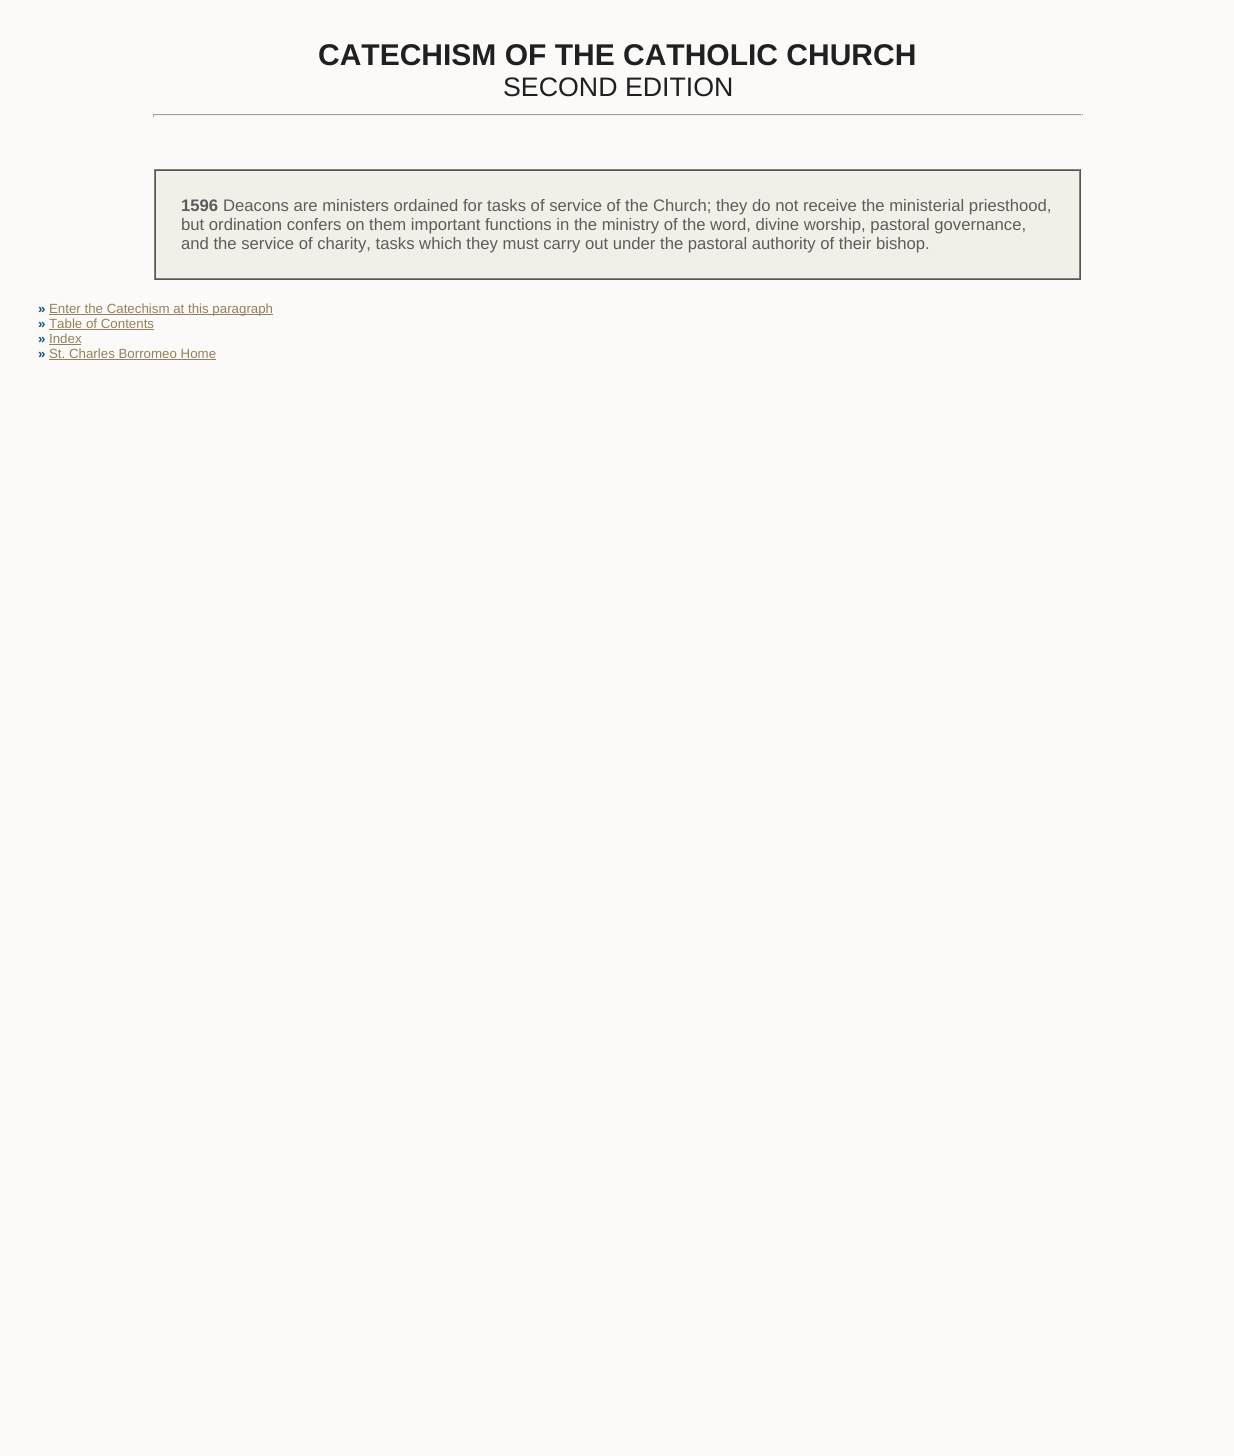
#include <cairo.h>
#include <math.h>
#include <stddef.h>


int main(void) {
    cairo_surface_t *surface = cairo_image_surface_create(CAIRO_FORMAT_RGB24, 1234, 1456);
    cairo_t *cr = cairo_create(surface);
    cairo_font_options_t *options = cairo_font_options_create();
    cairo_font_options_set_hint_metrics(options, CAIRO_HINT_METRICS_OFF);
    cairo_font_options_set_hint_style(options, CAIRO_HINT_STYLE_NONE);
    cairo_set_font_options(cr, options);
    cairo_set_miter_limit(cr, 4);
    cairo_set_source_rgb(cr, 0.984, 0.98, 0.973);
    cairo_paint(cr);
    cairo_select_font_face(cr, "Liberation Sans", CAIRO_FONT_SLANT_NORMAL, CAIRO_FONT_WEIGHT_BOLD);
    cairo_set_font_size(cr, 30);
    cairo_set_source_rgb(cr, 0.125, 0.125, 0.125);
    cairo_move_to(cr, 318, 65);
    cairo_show_text(cr, "CATECHISM OF THE CATHOLIC CHURCH");
    cairo_select_font_face(cr, "Liberation Sans", CAIRO_FONT_SLANT_NORMAL, CAIRO_FONT_WEIGHT_NORMAL);
    cairo_set_font_size(cr, 26.75);
    cairo_move_to(cr, 503, 96);
    cairo_show_text(cr, "SECOND EDITION");
    cairo_set_source_rgb(cr, 0.624, 0.624, 0.624);
    cairo_rectangle(cr, 153, 114, 930, 1);
    cairo_fill(cr);
    cairo_set_source_rgb(cr, 0.933, 0.933, 0.933);
    cairo_rectangle(cr, 1081, 114, 1, 3);
    cairo_fill(cr);
    cairo_rectangle(cr, 153, 115, 930, 1);
    cairo_fill(cr);
    cairo_set_source_rgb(cr, 0.624, 0.624, 0.624);
    cairo_rectangle(cr, 153, 114, 1, 3);
    cairo_fill(cr);
    cairo_set_source_rgb(cr, 0.949, 0.937, 0.91);
    cairo_rectangle(cr, 156, 171, 923, 107);
    cairo_fill(cr);
    cairo_set_source_rgb(cr, 0.502, 0.502, 0.502);
    cairo_rectangle(cr, 154, 169, 927, 1);
    cairo_fill(cr);
    cairo_set_source_rgb(cr, 0.333, 0.333, 0.333);
    cairo_rectangle(cr, 1080, 169, 1, 111);
    cairo_fill(cr);
    cairo_rectangle(cr, 154, 279, 927, 1);
    cairo_fill(cr);
    cairo_set_source_rgb(cr, 0.502, 0.502, 0.502);
    cairo_rectangle(cr, 154, 169, 1, 111);
    cairo_fill(cr);
    cairo_set_source_rgb(cr, 0.333, 0.333, 0.333);
    cairo_rectangle(cr, 155, 170, 925, 1);
    cairo_fill(cr);
    cairo_set_source_rgb(cr, 0.502, 0.502, 0.502);
    cairo_rectangle(cr, 1079, 170, 1, 109);
    cairo_fill(cr);
    cairo_rectangle(cr, 155, 278, 925, 1);
    cairo_fill(cr);
    cairo_set_source_rgb(cr, 0.333, 0.333, 0.333);
    cairo_rectangle(cr, 155, 170, 1, 109);
    cairo_fill(cr);
    cairo_select_font_face(cr, "Liberation Sans", CAIRO_FONT_SLANT_NORMAL, CAIRO_FONT_WEIGHT_BOLD);
    cairo_set_font_size(cr, 16.67);
    cairo_set_source_rgb(cr, 0.361, 0.361, 0.361);
    cairo_move_to(cr, 181, 211);
    cairo_show_text(cr, "1596");
    cairo_select_font_face(cr, "Liberation Sans", CAIRO_FONT_SLANT_NORMAL, CAIRO_FONT_WEIGHT_NORMAL);
    cairo_move_to(cr, 223, 211);
    cairo_show_text(cr, "Deacons are ministers ordained for tasks of service of the Church; they do not receive the ministerial priesthood,");
    cairo_move_to(cr, 181, 230);
    cairo_show_text(cr, "but ordination confers on them important functions in the ministry of the word, divine worship, pastoral governance,");
    cairo_move_to(cr, 181, 249);
    cairo_show_text(cr, "and the service of charity, tasks which they must carry out under the pastoral authority of their bishop.");
    cairo_select_font_face(cr, "Liberation Sans", CAIRO_FONT_SLANT_NORMAL, CAIRO_FONT_WEIGHT_BOLD);
    cairo_set_font_size(cr, 13.3);
    cairo_set_source_rgb(cr, 0.039, 0.337, 0.533);
    cairo_move_to(cr, 38, 313);
    cairo_show_text(cr, "»");
    cairo_set_source_rgb(cr, 0.58, 0.502, 0.361);
    cairo_rectangle(cr, 49, 314, 224, 1);
    cairo_fill(cr);
    cairo_select_font_face(cr, "Liberation Sans", CAIRO_FONT_SLANT_NORMAL, CAIRO_FONT_WEIGHT_NORMAL);
    cairo_move_to(cr, 49, 313);
    cairo_show_text(cr, "Enter the Catechism at this paragraph");
    cairo_select_font_face(cr, "Liberation Sans", CAIRO_FONT_SLANT_NORMAL, CAIRO_FONT_WEIGHT_BOLD);
    cairo_set_source_rgb(cr, 0.039, 0.337, 0.533);
    cairo_move_to(cr, 38, 328);
    cairo_show_text(cr, "»");
    cairo_select_font_face(cr, "Liberation Sans", CAIRO_FONT_SLANT_NORMAL, CAIRO_FONT_WEIGHT_NORMAL);
    cairo_set_source_rgb(cr, 0.58, 0.502, 0.361);
    cairo_move_to(cr, 49, 328);
    cairo_show_text(cr, "Table of Contents");
    cairo_rectangle(cr, 49, 329, 105, 1);
    cairo_fill(cr);
    cairo_select_font_face(cr, "Liberation Sans", CAIRO_FONT_SLANT_NORMAL, CAIRO_FONT_WEIGHT_BOLD);
    cairo_set_source_rgb(cr, 0.039, 0.337, 0.533);
    cairo_move_to(cr, 38, 343);
    cairo_show_text(cr, "»");
    cairo_select_font_face(cr, "Liberation Sans", CAIRO_FONT_SLANT_NORMAL, CAIRO_FONT_WEIGHT_NORMAL);
    cairo_set_source_rgb(cr, 0.58, 0.502, 0.361);
    cairo_move_to(cr, 49, 343);
    cairo_show_text(cr, "Index");
    cairo_rectangle(cr, 49, 344, 32, 1);
    cairo_fill(cr);
    cairo_select_font_face(cr, "Liberation Sans", CAIRO_FONT_SLANT_NORMAL, CAIRO_FONT_WEIGHT_BOLD);
    cairo_set_source_rgb(cr, 0.039, 0.337, 0.533);
    cairo_move_to(cr, 38, 358);
    cairo_show_text(cr, "»");
    cairo_select_font_face(cr, "Liberation Sans", CAIRO_FONT_SLANT_NORMAL, CAIRO_FONT_WEIGHT_NORMAL);
    cairo_set_source_rgb(cr, 0.58, 0.502, 0.361);
    cairo_move_to(cr, 49, 358);
    cairo_show_text(cr, "St. Charles Borromeo Home");
    cairo_rectangle(cr, 49, 359, 167, 1);
    cairo_fill(cr);
    cairo_surface_write_to_png(surface, "page.png");
    cairo_font_options_destroy(options);
    cairo_destroy(cr);
    cairo_surface_destroy(surface);
    return 0;
}
